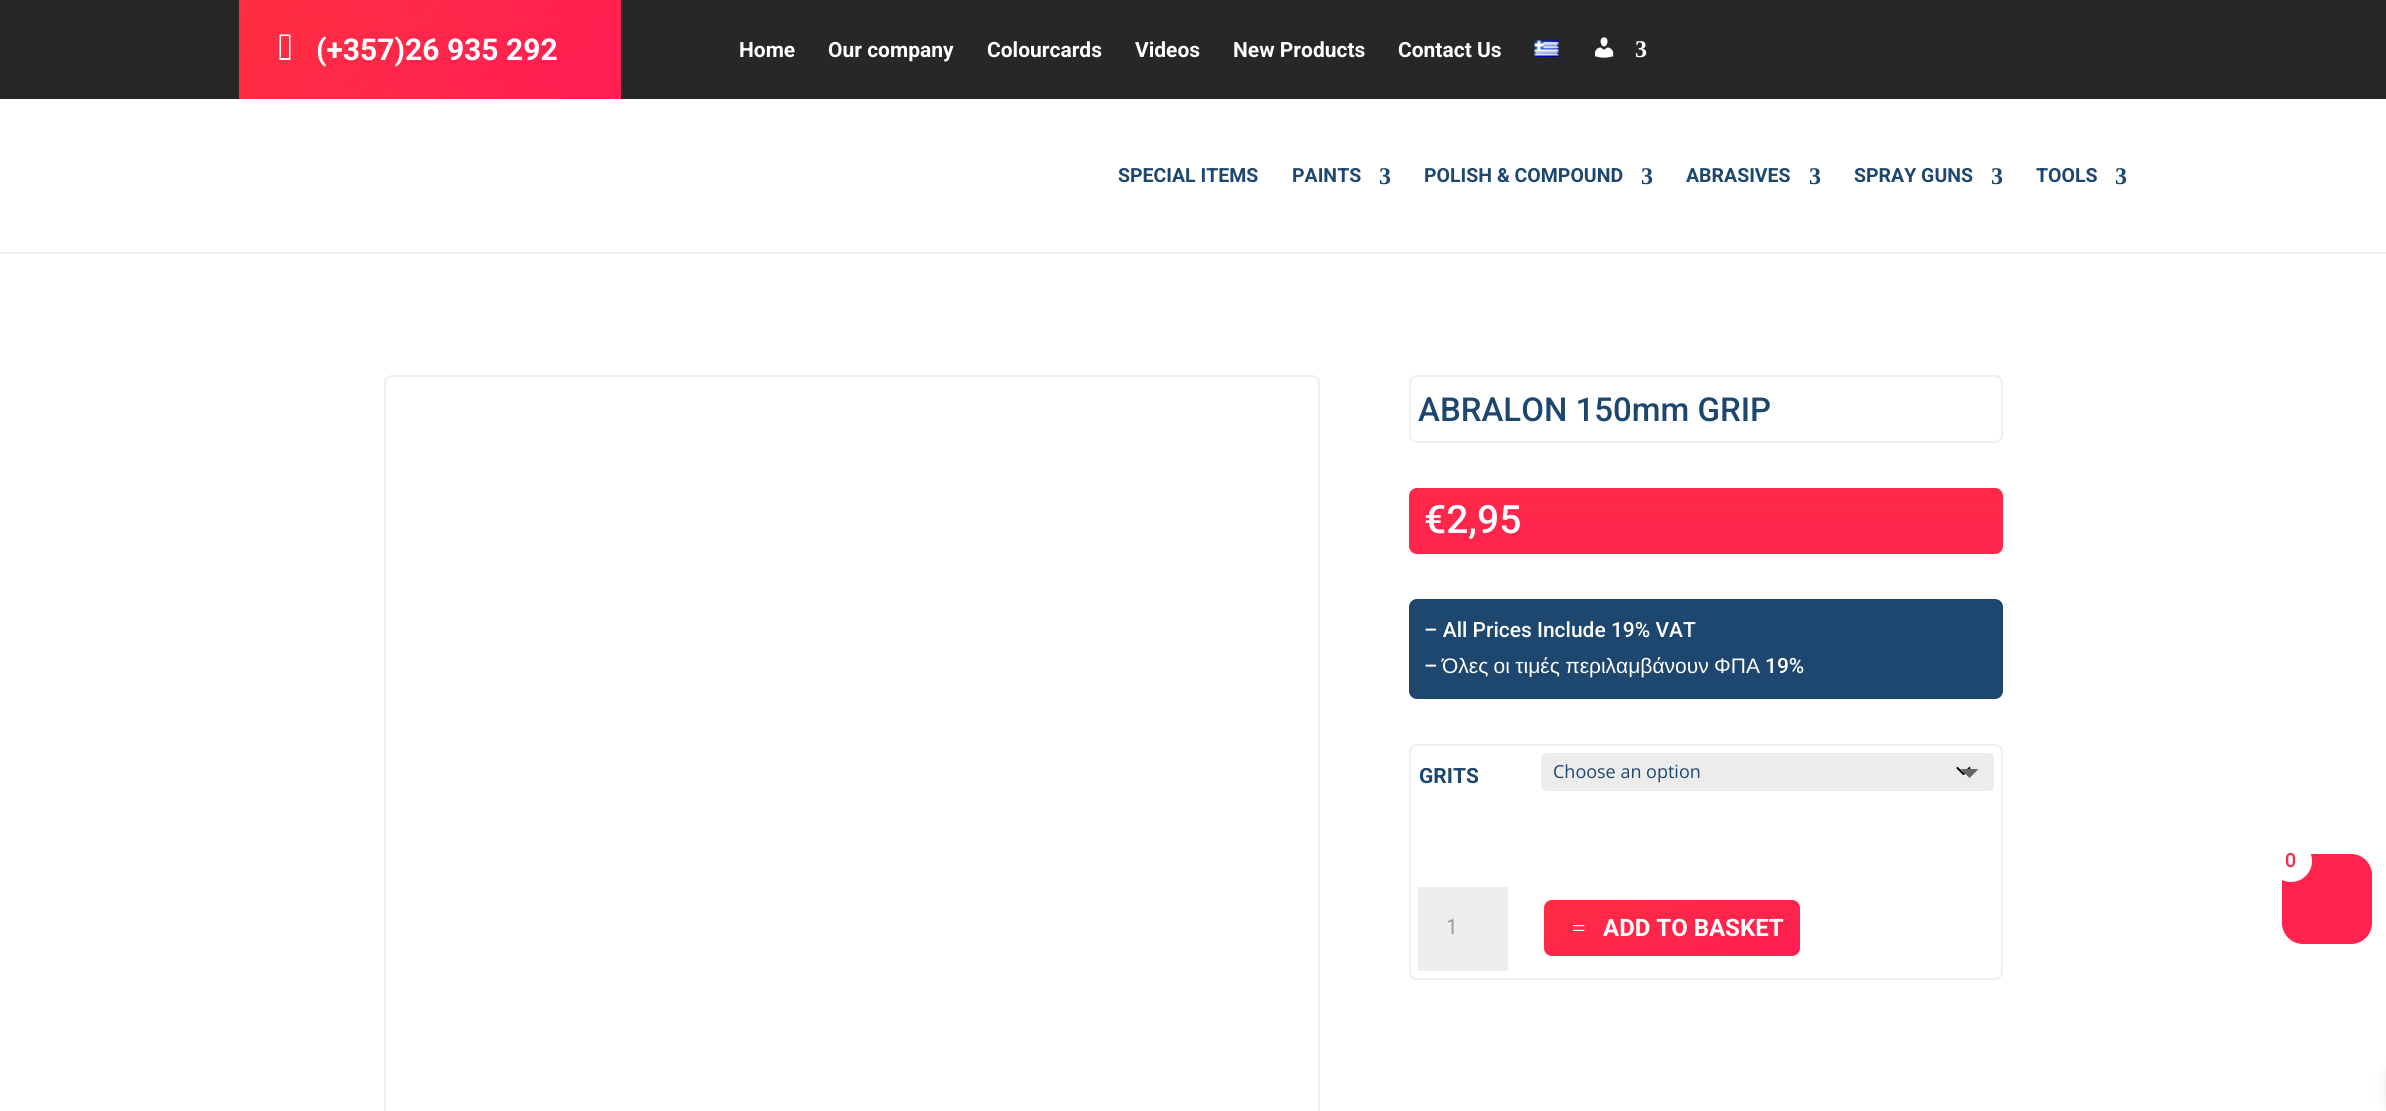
#include <cairo.h>
#include <math.h>
#include <stddef.h>


static void spaced_text(cairo_t *cr, double x, double y, const char *s, double letter, double word) {
    cairo_move_to(cr, x, y);
    while (*s) {
        char ch[5] = {0};
        int n = 0;
        do ch[n++] = *s++; while ((*s & 0xC0) == 0x80);
        cairo_show_text(cr, ch);
        cairo_rel_move_to(cr, letter + word * (*ch == ' '), 0);
    }
}

static void round_rect(cairo_t *cr, double x, double y, double w, double h, double r) {
    cairo_new_sub_path(cr);
    cairo_arc(cr, x + w - r, y + h - r, r, 0, M_PI / 2);
    cairo_arc(cr, x + r, y + h - r, r, M_PI / 2, M_PI);
    cairo_arc(cr, x + r, y + r, r, M_PI, 1.5 * M_PI);
    cairo_arc(cr, x + w - r, y + r, r, 1.5 * M_PI, 2 * M_PI);
    cairo_close_path(cr);
}

static void shadow(cairo_t *cr, double x, double y, double w, double h, double r, double blur, double alpha) {
    cairo_push_group_with_content(cr, CAIRO_CONTENT_ALPHA);
    cairo_set_operator(cr, CAIRO_OPERATOR_SOURCE);
    for (int i = 15; i >= -15 && fmin(w, h) + blur * i / 3 > 0; i -= 2) {
        double e = blur * i / 6;
        cairo_set_source_rgba(cr, 0, 0, 0, alpha * erfc((i - 1) / 8.5) / 2);
        round_rect(cr, x - e, y - e, w + 2 * e, h + 2 * e, fmax(0, fmin(r + e + blur * .6, fmin(w, h) / 2 + e)));
        cairo_fill(cr);
    }
    cairo_pattern_t *soft = cairo_pop_group(cr);
    cairo_mask(cr, soft);
    cairo_pattern_destroy(soft);
}

static void picture(cairo_t *cr, const char *path, double x, double y, double w, double h) {
    cairo_surface_t *image = cairo_image_surface_create_from_png(path);
    cairo_save(cr);
    cairo_set_source_surface(cr, image, x, y);
    cairo_rectangle(cr, x, y, w, h);
    cairo_fill(cr);
    cairo_restore(cr);
    cairo_surface_destroy(image);
}

int main(void) {
    cairo_surface_t *surface = cairo_image_surface_create(CAIRO_FORMAT_RGB24, 2386, 1111);
    cairo_t *cr = cairo_create(surface);
    cairo_font_options_t *options = cairo_font_options_create();
    cairo_font_options_set_hint_metrics(options, CAIRO_HINT_METRICS_OFF);
    cairo_font_options_set_hint_style(options, CAIRO_HINT_STYLE_NONE);
    cairo_set_font_options(cr, options);
    cairo_set_miter_limit(cr, 4);
    cairo_pattern_t *gradient;
    cairo_set_source_rgb(cr, 1, 1, 1);
    cairo_paint(cr);
    cairo_set_source_rgb(cr, 0.153, 0.153, 0.153);
    cairo_rectangle(cr, 0, 0, 2386, 99);
    cairo_fill(cr);
    gradient = cairo_pattern_create_linear(260, -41, 599, 140);
    cairo_pattern_add_color_stop_rgba(gradient, 0, 1, 0.18, 0.259, 1);
    cairo_pattern_add_color_stop_rgba(gradient, 1, 1, 0.118, 0.325, 1);
    cairo_set_source(cr, gradient);
    cairo_pattern_destroy(gradient);
    cairo_rectangle(cr, 239, 0, 382, 99);
    cairo_fill(cr);
    gradient = cairo_pattern_create_linear(366, -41, 493, 140);
    cairo_pattern_add_color_stop_rgba(gradient, 0, 1, 0.18, 0.259, 1);
    cairo_pattern_add_color_stop_rgba(gradient, 1, 1, 0.118, 0.325, 1);
    cairo_set_source(cr, gradient);
    cairo_pattern_destroy(gradient);
    cairo_rectangle(cr, 292, 15, 275, 69);
    cairo_fill(cr);
    cairo_set_source_rgb(cr, 1, 1, 1);
    cairo_new_path(cr);
    cairo_move_to(cr, 281, 58);
    cairo_line_to(cr, 281, 36);
    cairo_line_to(cr, 289, 36);
    cairo_line_to(cr, 289, 58);
    cairo_close_path(cr);
    cairo_move_to(cr, 279.5, 60);
    cairo_line_to(cr, 290.5, 60);
    cairo_line_to(cr, 290.5, 34.5);
    cairo_line_to(cr, 279.5, 34.5);
    cairo_close_path(cr);
    cairo_fill(cr);
    cairo_select_font_face(cr, "Roboto", CAIRO_FONT_SLANT_NORMAL, CAIRO_FONT_WEIGHT_BOLD);
    cairo_set_font_size(cr, 30);
    cairo_move_to(cr, 316, 60);
    cairo_show_text(cr, "(+357)26 935 292");
    cairo_set_font_size(cr, 21);
    cairo_move_to(cr, 739, 57);
    cairo_show_text(cr, "Home");
    cairo_move_to(cr, 828, 57);
    cairo_show_text(cr, "Our company");
    cairo_move_to(cr, 987, 57);
    cairo_show_text(cr, "Colourcards");
    cairo_move_to(cr, 1135, 57);
    cairo_show_text(cr, "Videos");
    cairo_move_to(cr, 1233, 57);
    cairo_show_text(cr, "New Products");
    cairo_move_to(cr, 1398, 57);
    cairo_show_text(cr, "Contact Us");
    picture(cr, "img1.png", 1534, 40, 25, 17);
    picture(cr, "img2.png", 1595, 37, 19, 21);
    cairo_select_font_face(cr, "Liberation Serif", CAIRO_FONT_SLANT_NORMAL, CAIRO_FONT_WEIGHT_BOLD);
    cairo_set_font_size(cr, 24);
    cairo_move_to(cr, 1635, 57);
    cairo_show_text(cr, "3");
    cairo_set_source_rgb(cr, 0.937, 0.937, 0.937);
    cairo_rectangle(cr, 0, 252, 2386, 2);
    cairo_fill(cr);
    cairo_select_font_face(cr, "Roboto", CAIRO_FONT_SLANT_NORMAL, CAIRO_FONT_WEIGHT_BOLD);
    cairo_set_font_size(cr, 19.5);
    cairo_set_source_rgb(cr, 0.114, 0.278, 0.435);
    cairo_move_to(cr, 1118, 182);
    cairo_show_text(cr, "SPECIAL ITEMS");
    cairo_move_to(cr, 1292, 182);
    cairo_show_text(cr, "PAINTS");
    cairo_select_font_face(cr, "Liberation Serif", CAIRO_FONT_SLANT_NORMAL, CAIRO_FONT_WEIGHT_BOLD);
    cairo_set_font_size(cr, 24);
    cairo_move_to(cr, 1379, 184);
    cairo_show_text(cr, "3");
    cairo_select_font_face(cr, "Roboto", CAIRO_FONT_SLANT_NORMAL, CAIRO_FONT_WEIGHT_BOLD);
    cairo_set_font_size(cr, 19.5);
    cairo_move_to(cr, 1424, 182);
    cairo_show_text(cr, "POLISH & COMPOUND");
    cairo_select_font_face(cr, "Liberation Serif", CAIRO_FONT_SLANT_NORMAL, CAIRO_FONT_WEIGHT_BOLD);
    cairo_set_font_size(cr, 24);
    cairo_move_to(cr, 1641, 184);
    cairo_show_text(cr, "3");
    cairo_select_font_face(cr, "Roboto", CAIRO_FONT_SLANT_NORMAL, CAIRO_FONT_WEIGHT_BOLD);
    cairo_set_font_size(cr, 19.5);
    cairo_move_to(cr, 1686, 182);
    cairo_show_text(cr, "ABRASIVES");
    cairo_select_font_face(cr, "Liberation Serif", CAIRO_FONT_SLANT_NORMAL, CAIRO_FONT_WEIGHT_BOLD);
    cairo_set_font_size(cr, 24);
    cairo_move_to(cr, 1809, 184);
    cairo_show_text(cr, "3");
    cairo_select_font_face(cr, "Roboto", CAIRO_FONT_SLANT_NORMAL, CAIRO_FONT_WEIGHT_BOLD);
    cairo_set_font_size(cr, 19.5);
    cairo_move_to(cr, 1854, 182);
    cairo_show_text(cr, "SPRAY GUNS");
    cairo_select_font_face(cr, "Liberation Serif", CAIRO_FONT_SLANT_NORMAL, CAIRO_FONT_WEIGHT_BOLD);
    cairo_set_font_size(cr, 24);
    cairo_move_to(cr, 1991, 184);
    cairo_show_text(cr, "3");
    cairo_select_font_face(cr, "Roboto", CAIRO_FONT_SLANT_NORMAL, CAIRO_FONT_WEIGHT_BOLD);
    cairo_set_font_size(cr, 19.5);
    cairo_move_to(cr, 2036, 182);
    cairo_show_text(cr, "TOOLS");
    cairo_select_font_face(cr, "Liberation Serif", CAIRO_FONT_SLANT_NORMAL, CAIRO_FONT_WEIGHT_BOLD);
    cairo_set_font_size(cr, 24);
    cairo_move_to(cr, 2115, 184);
    cairo_show_text(cr, "3");
    round_rect(cr, 385, 376, 934, 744, 7);
    cairo_set_source_rgb(cr, 0.937, 0.937, 0.937);
    cairo_stroke(cr);
    round_rect(cr, 1410, 376, 592, 66, 7);
    cairo_stroke(cr);
    cairo_select_font_face(cr, "Roboto Medium", CAIRO_FONT_SLANT_NORMAL, CAIRO_FONT_WEIGHT_NORMAL);
    cairo_set_font_size(cr, 33);
    cairo_set_source_rgb(cr, 0.114, 0.278, 0.435);
    cairo_move_to(cr, 1418, 421);
    cairo_show_text(cr, "ABRALON 150mm GRIP");
    gradient = cairo_pattern_create_linear(1706, 488, 1706, 554);
    cairo_pattern_add_color_stop_rgba(gradient, 0, 1, 0.157, 0.286, 1);
    cairo_pattern_add_color_stop_rgba(gradient, 1, 1, 0.141, 0.298, 1);
    cairo_set_source(cr, gradient);
    cairo_pattern_destroy(gradient);
    round_rect(cr, 1409, 488, 594, 66, 8);
    cairo_fill(cr);
    cairo_set_font_size(cr, 39);
    cairo_set_source_rgb(cr, 1, 1, 1);
    cairo_move_to(cr, 1424, 533);
    cairo_show_text(cr, "€2,95");
    cairo_set_source_rgb(cr, 0.114, 0.278, 0.435);
    round_rect(cr, 1409, 599, 594, 100, 8);
    cairo_fill(cr);
    cairo_set_font_size(cr, 21);
    cairo_set_source_rgb(cr, 1, 1, 1);
    cairo_move_to(cr, 1424, 637);
    cairo_show_text(cr, "– All Prices Include 19% VAT");
    cairo_move_to(cr, 1424, 673);
    cairo_show_text(cr, "–");
    cairo_select_font_face(cr, "Liberation Sans", CAIRO_FONT_SLANT_NORMAL, CAIRO_FONT_WEIGHT_NORMAL);
    spaced_text(cr, 1442, 673, "Όλες οι τιμές περιλαμβάνουν ΦΠΑ", 0, -0.5);
    cairo_select_font_face(cr, "Roboto Medium", CAIRO_FONT_SLANT_NORMAL, CAIRO_FONT_WEIGHT_NORMAL);
    cairo_move_to(cr, 1765, 673);
    cairo_show_text(cr, "19%");
    round_rect(cr, 1410, 745, 592, 234, 7);
    cairo_set_source_rgb(cr, 0.937, 0.937, 0.937);
    cairo_stroke(cr);
    cairo_select_font_face(cr, "Roboto", CAIRO_FONT_SLANT_NORMAL, CAIRO_FONT_WEIGHT_BOLD);
    cairo_set_source_rgb(cr, 0.114, 0.278, 0.435);
    cairo_move_to(cr, 1419, 783);
    cairo_show_text(cr, "GRITS");
    cairo_set_source_rgb(cr, 0.925, 0.925, 0.925);
    round_rect(cr, 1541, 753, 453, 38, 5);
    cairo_fill(cr);
    cairo_new_path(cr);
    cairo_move_to(cr, 1957.5, 768);
    cairo_line_to(cr, 1963.5, 774);
    cairo_line_to(cr, 1969.5, 768);
    cairo_set_source_rgb(cr, 0, 0, 0);
    cairo_set_line_cap(cr, CAIRO_LINE_CAP_ROUND);
    cairo_set_line_join(cr, CAIRO_LINE_JOIN_ROUND);
    cairo_stroke(cr);
    cairo_select_font_face(cr, "Open Sans", CAIRO_FONT_SLANT_NORMAL, CAIRO_FONT_WEIGHT_NORMAL);
    cairo_set_font_size(cr, 18);
    cairo_set_source_rgb(cr, 0.114, 0.278, 0.435);
    cairo_move_to(cr, 1553, 778);
    cairo_show_text(cr, "Choose an option");
    cairo_set_source_rgb(cr, 0.4, 0.4, 0.4);
    cairo_new_path(cr);
    cairo_move_to(cr, 1960.5, 769);
    cairo_line_to(cr, 1978.5, 769);
    cairo_line_to(cr, 1969.5, 778);
    cairo_close_path(cr);
    cairo_fill(cr);
    cairo_set_source_rgb(cr, 0.933, 0.933, 0.933);
    cairo_rectangle(cr, 1418, 887, 90, 84);
    cairo_fill(cr);
    cairo_select_font_face(cr, "Roboto", CAIRO_FONT_SLANT_NORMAL, CAIRO_FONT_WEIGHT_NORMAL);
    cairo_set_font_size(cr, 21);
    cairo_set_source_rgb(cr, 0.6, 0.6, 0.6);
    cairo_move_to(cr, 1446, 934);
    cairo_show_text(cr, "1");
    gradient = cairo_pattern_create_linear(1653, 867, 1690, 989);
    cairo_pattern_add_color_stop_rgba(gradient, 0, 1, 0.176, 0.259, 1);
    cairo_pattern_add_color_stop_rgba(gradient, 1, 1, 0.118, 0.325, 1);
    cairo_set_source(cr, gradient);
    cairo_pattern_destroy(gradient);
    round_rect(cr, 1544, 900, 256, 56, 8);
    cairo_fill(cr);
    cairo_select_font_face(cr, "Liberation Serif", CAIRO_FONT_SLANT_NORMAL, CAIRO_FONT_WEIGHT_NORMAL);
    cairo_set_font_size(cr, 24);
    cairo_set_source_rgb(cr, 1, 1, 1);
    cairo_move_to(cr, 1572, 936);
    cairo_show_text(cr, "=");
    cairo_select_font_face(cr, "Roboto", CAIRO_FONT_SLANT_NORMAL, CAIRO_FONT_WEIGHT_BOLD);
    cairo_move_to(cr, 1603, 936);
    cairo_show_text(cr, "ADD TO BASKET");
    cairo_set_source_rgb(cr, 1, 0.137, 0.306);
    round_rect(cr, 2282, 854, 90, 90, 21);
    cairo_fill(cr);
    cairo_set_source_rgb(cr, 1, 1, 1);
    cairo_arc(cr, 2291, 861, 21, 0, 2 * M_PI);
    cairo_fill(cr);
    cairo_select_font_face(cr, "Roboto Medium", CAIRO_FONT_SLANT_NORMAL, CAIRO_FONT_WEIGHT_NORMAL);
    cairo_set_font_size(cr, 19.5);
    cairo_set_source_rgb(cr, 1, 0.137, 0.306);
    cairo_move_to(cr, 2285, 867);
    cairo_show_text(cr, "0");
    cairo_set_source_rgb(cr, 0, 0, 0);
    shadow(cr, 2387, 1074, 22, 30, 0, 7.5, 0.1);
    cairo_surface_write_to_png(surface, "page.png");
    cairo_font_options_destroy(options);
    cairo_destroy(cr);
    cairo_surface_destroy(surface);
    return 0;
}
